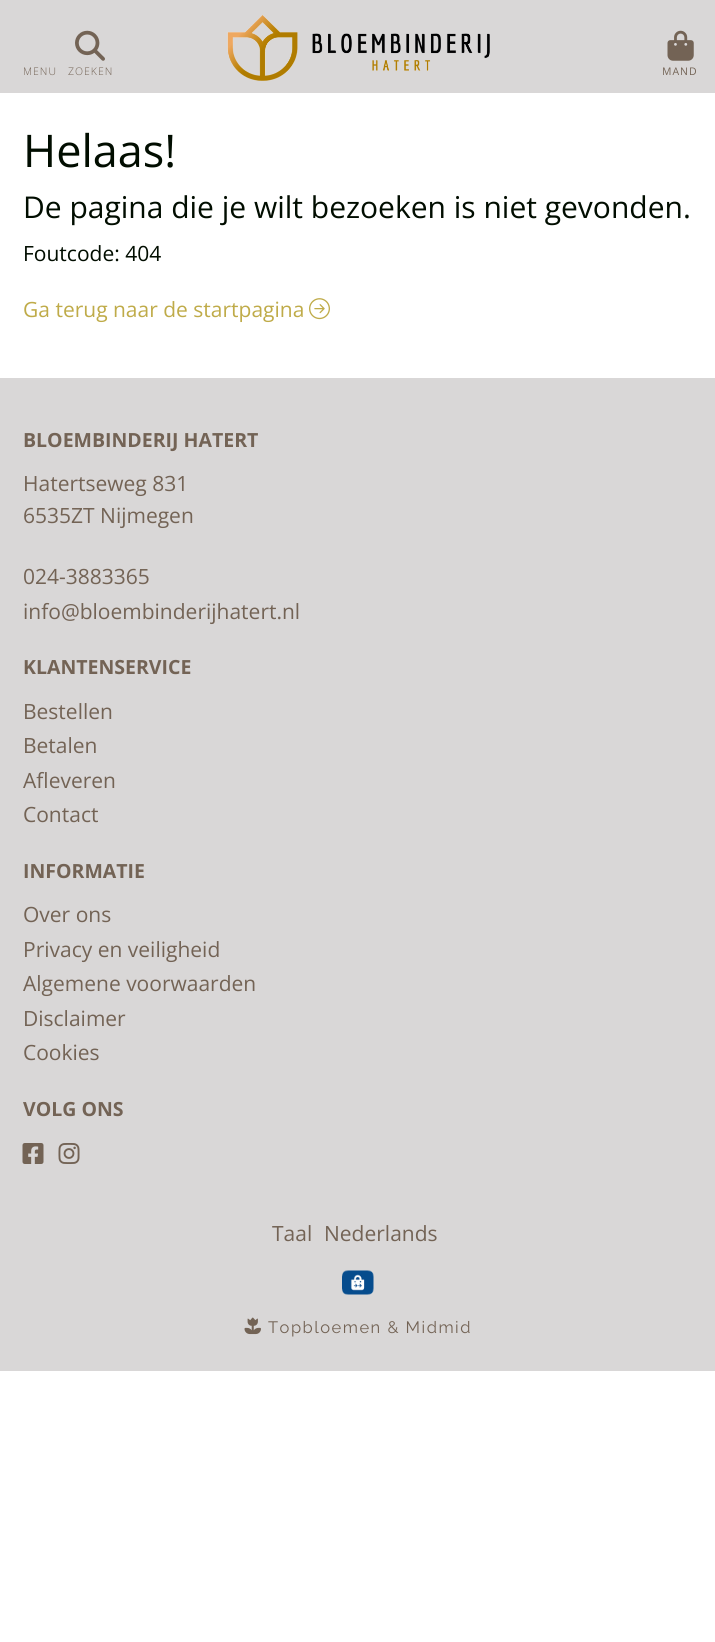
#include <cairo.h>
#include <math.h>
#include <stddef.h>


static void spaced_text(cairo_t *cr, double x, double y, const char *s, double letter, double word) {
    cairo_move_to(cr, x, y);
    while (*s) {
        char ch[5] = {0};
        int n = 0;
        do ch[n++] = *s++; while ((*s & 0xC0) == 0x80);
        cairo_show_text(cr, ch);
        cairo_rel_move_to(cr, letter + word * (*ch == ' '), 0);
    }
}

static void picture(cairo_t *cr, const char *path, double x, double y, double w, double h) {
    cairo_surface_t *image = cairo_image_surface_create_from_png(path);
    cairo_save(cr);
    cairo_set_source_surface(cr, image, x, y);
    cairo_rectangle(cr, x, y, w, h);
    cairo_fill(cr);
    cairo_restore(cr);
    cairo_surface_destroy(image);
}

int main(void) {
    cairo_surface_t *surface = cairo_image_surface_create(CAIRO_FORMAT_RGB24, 715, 1642);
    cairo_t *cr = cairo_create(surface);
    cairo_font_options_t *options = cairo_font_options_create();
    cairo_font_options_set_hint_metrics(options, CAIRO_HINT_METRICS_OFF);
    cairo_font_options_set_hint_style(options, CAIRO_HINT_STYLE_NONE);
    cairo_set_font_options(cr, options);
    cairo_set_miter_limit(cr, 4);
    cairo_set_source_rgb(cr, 1, 1, 1);
    cairo_paint(cr);
    cairo_set_source_rgb(cr, 0.851, 0.843, 0.843);
    cairo_rectangle(cr, 0, 0, 715, 93);
    cairo_fill(cr);
    cairo_select_font_face(cr, "Open Sans Light", CAIRO_FONT_SLANT_NORMAL, CAIRO_FONT_WEIGHT_NORMAL);
    cairo_set_font_size(cr, 10.5);
    cairo_set_source_rgb(cr, 0.451, 0.388, 0.333);
    spaced_text(cr, 23, 75, "MENU", 1, 0);
    picture(cr, "img1.png", 75, 30, 30, 31);
    spaced_text(cr, 68, 75, "ZOEKEN", 1, 0);
    picture(cr, "img2.png", 227, 15, 263, 66);
    picture(cr, "img3.png", 667, 30, 27, 31);
    cairo_select_font_face(cr, "Open Sans", CAIRO_FONT_SLANT_NORMAL, CAIRO_FONT_WEIGHT_NORMAL);
    spaced_text(cr, 662, 75, "MAND", 1, 0);
    cairo_set_font_size(cr, 45);
    cairo_set_source_rgb(cr, 0.004, 0.051, 0);
    cairo_move_to(cr, 23, 167);
    cairo_show_text(cr, "Helaas!");
    cairo_set_font_size(cr, 30);
    cairo_move_to(cr, 23, 218);
    cairo_show_text(cr, "De pagina die je wilt bezoeken is niet gevonden.");
    cairo_set_font_size(cr, 21);
    cairo_move_to(cr, 23, 261);
    cairo_show_text(cr, "Foutcode: 404");
    cairo_set_source_rgb(cr, 0.749, 0.671, 0.286);
    cairo_move_to(cr, 23, 317);
    cairo_show_text(cr, "Ga terug naar de startpagina");
    picture(cr, "img4.png", 309, 298, 21, 22);
    cairo_set_source_rgb(cr, 0.851, 0.843, 0.843);
    cairo_rectangle(cr, 0, 378, 715, 993);
    cairo_fill(cr);
    cairo_select_font_face(cr, "Open Sans", CAIRO_FONT_SLANT_NORMAL, CAIRO_FONT_WEIGHT_BOLD);
    cairo_set_font_size(cr, 19.5);
    cairo_set_source_rgb(cr, 0.451, 0.388, 0.333);
    cairo_move_to(cr, 23, 447);
    cairo_show_text(cr, "BLOEMBINDERIJ HATERT");
    cairo_select_font_face(cr, "Open Sans", CAIRO_FONT_SLANT_NORMAL, CAIRO_FONT_WEIGHT_NORMAL);
    cairo_set_font_size(cr, 21);
    cairo_move_to(cr, 23, 491);
    cairo_show_text(cr, "Hatertseweg 831");
    cairo_move_to(cr, 23, 523);
    cairo_show_text(cr, "6535ZT Nijmegen");
    cairo_move_to(cr, 23, 584);
    cairo_show_text(cr, "024-3883365");
    cairo_move_to(cr, 23, 619);
    cairo_show_text(cr, "info@bloembinderijhatert.nl");
    cairo_select_font_face(cr, "Open Sans", CAIRO_FONT_SLANT_NORMAL, CAIRO_FONT_WEIGHT_BOLD);
    cairo_set_font_size(cr, 19.5);
    cairo_move_to(cr, 23, 674);
    cairo_show_text(cr, "KLANTENSERVICE");
    cairo_select_font_face(cr, "Open Sans", CAIRO_FONT_SLANT_NORMAL, CAIRO_FONT_WEIGHT_NORMAL);
    cairo_set_font_size(cr, 21);
    cairo_move_to(cr, 23, 719);
    cairo_show_text(cr, "Bestellen");
    cairo_move_to(cr, 23, 753);
    cairo_show_text(cr, "Betalen");
    cairo_move_to(cr, 23, 788);
    cairo_show_text(cr, "Afleveren");
    cairo_move_to(cr, 23, 822);
    cairo_show_text(cr, "Contact");
    cairo_select_font_face(cr, "Open Sans", CAIRO_FONT_SLANT_NORMAL, CAIRO_FONT_WEIGHT_BOLD);
    cairo_set_font_size(cr, 19.5);
    cairo_move_to(cr, 23, 878);
    cairo_show_text(cr, "INFORMATIE");
    cairo_select_font_face(cr, "Open Sans", CAIRO_FONT_SLANT_NORMAL, CAIRO_FONT_WEIGHT_NORMAL);
    cairo_set_font_size(cr, 21);
    cairo_move_to(cr, 23, 922);
    cairo_show_text(cr, "Over ons");
    cairo_move_to(cr, 23, 957);
    cairo_show_text(cr, "Privacy en veiligheid");
    cairo_move_to(cr, 23, 991);
    cairo_show_text(cr, "Algemene voorwaarden");
    cairo_move_to(cr, 23, 1026);
    cairo_show_text(cr, "Disclaimer");
    cairo_move_to(cr, 23, 1060);
    cairo_show_text(cr, "Cookies");
    cairo_select_font_face(cr, "Open Sans", CAIRO_FONT_SLANT_NORMAL, CAIRO_FONT_WEIGHT_BOLD);
    cairo_set_font_size(cr, 19.5);
    cairo_move_to(cr, 23, 1116);
    cairo_show_text(cr, "VOLG ONS");
    picture(cr, "img5.png", 22, 1143, 22, 21);
    picture(cr, "img6.png", 58, 1143, 22, 21);
    cairo_select_font_face(cr, "Open Sans", CAIRO_FONT_SLANT_NORMAL, CAIRO_FONT_WEIGHT_NORMAL);
    cairo_set_font_size(cr, 21);
    cairo_move_to(cr, 272, 1241);
    cairo_show_text(cr, "Taal");
    cairo_move_to(cr, 324, 1241);
    cairo_show_text(cr, "Nederlands");
    picture(cr, "img7.png", 342, 1270, 32, 25);
    picture(cr, "img8.png", 244, 1317, 17, 18);
    cairo_select_font_face(cr, "Raleway", CAIRO_FONT_SLANT_NORMAL, CAIRO_FONT_WEIGHT_NORMAL);
    cairo_set_font_size(cr, 16.5);
    spaced_text(cr, 268, 1333, "Topbloemen & Midmid", 1.5, 0);
    cairo_surface_write_to_png(surface, "page.png");
    cairo_font_options_destroy(options);
    cairo_destroy(cr);
    cairo_surface_destroy(surface);
    return 0;
}
